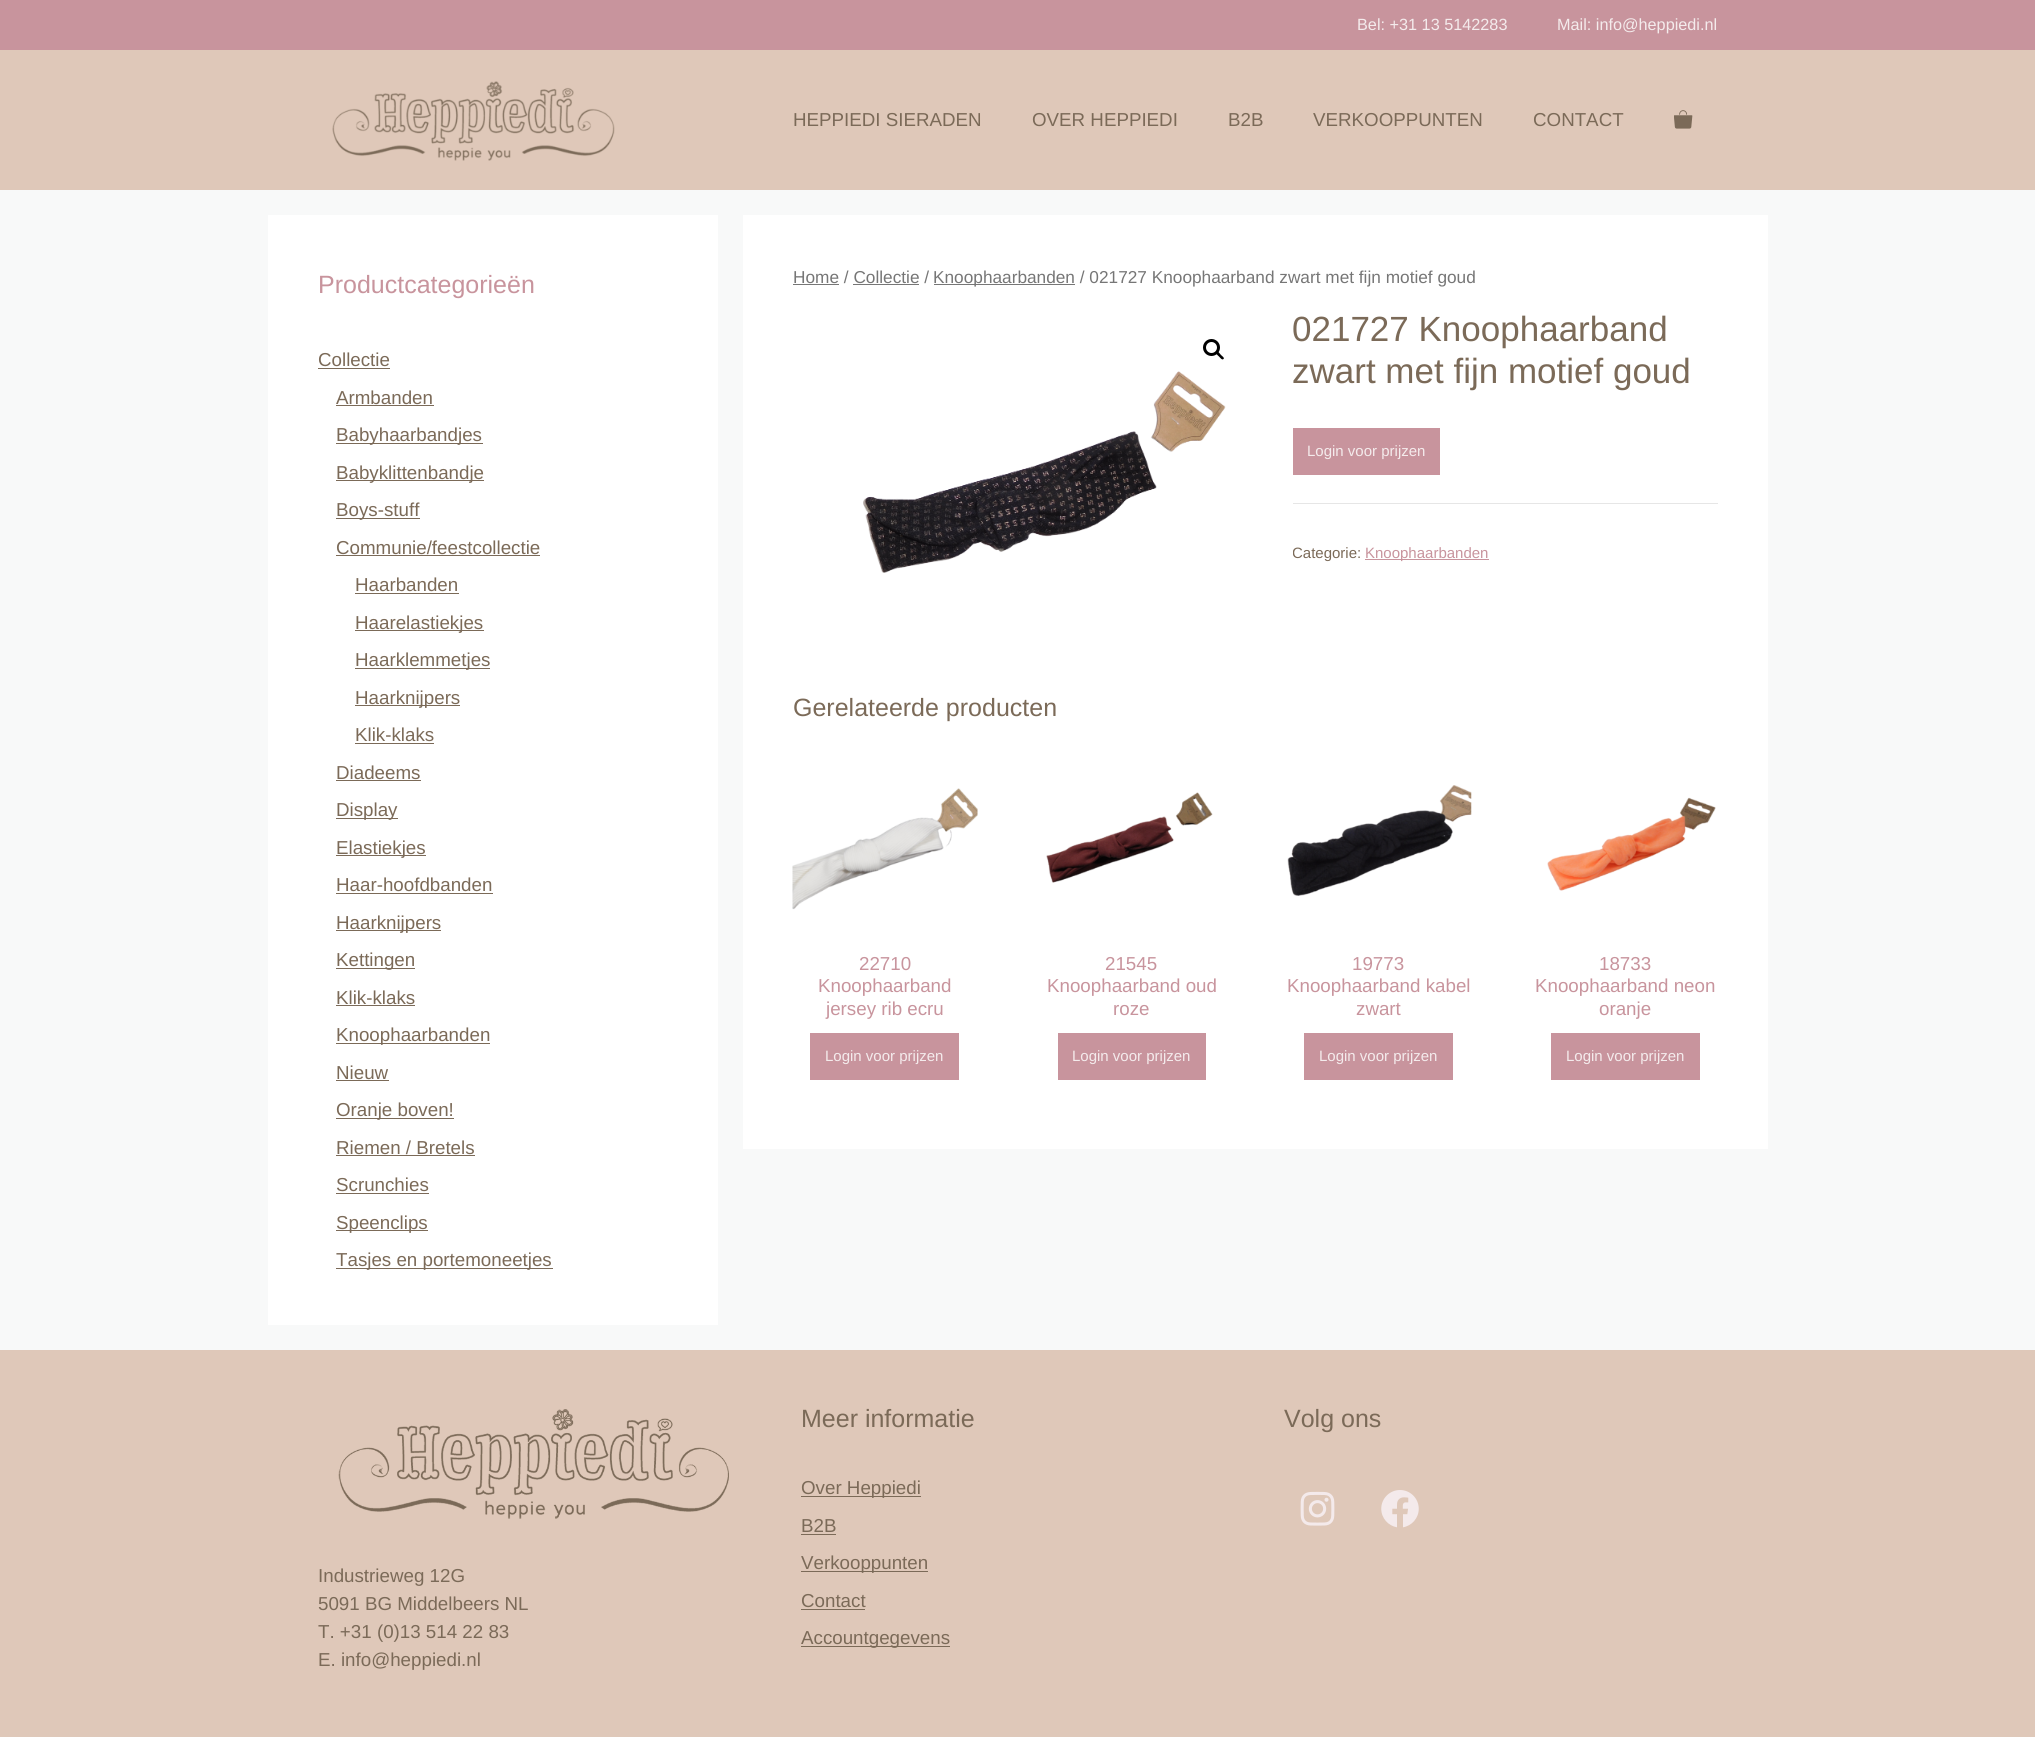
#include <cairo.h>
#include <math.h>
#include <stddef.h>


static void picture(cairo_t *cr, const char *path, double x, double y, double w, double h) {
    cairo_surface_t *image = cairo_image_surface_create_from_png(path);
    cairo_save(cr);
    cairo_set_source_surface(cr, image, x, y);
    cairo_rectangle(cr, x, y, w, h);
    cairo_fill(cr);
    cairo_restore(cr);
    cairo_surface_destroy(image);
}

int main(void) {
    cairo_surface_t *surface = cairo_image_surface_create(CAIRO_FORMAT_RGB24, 2035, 1737);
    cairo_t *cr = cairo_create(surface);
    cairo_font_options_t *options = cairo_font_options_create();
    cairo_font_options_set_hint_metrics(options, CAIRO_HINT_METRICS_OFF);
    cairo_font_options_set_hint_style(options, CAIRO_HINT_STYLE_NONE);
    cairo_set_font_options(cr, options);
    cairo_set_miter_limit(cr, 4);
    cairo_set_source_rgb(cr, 0.969, 0.973, 0.976);
    cairo_paint(cr);
    cairo_set_source_rgb(cr, 0.784, 0.58, 0.616);
    cairo_rectangle(cr, 0, 0, 2035, 50);
    cairo_fill(cr);
    cairo_select_font_face(cr, "Liberation Sans", CAIRO_FONT_SLANT_NORMAL, CAIRO_FONT_WEIGHT_NORMAL);
    cairo_set_font_size(cr, 16.25);
    cairo_set_source_rgb(cr, 0.957, 0.918, 0.922);
    cairo_move_to(cr, 1357, 30);
    cairo_show_text(cr, "Bel: +31 13 5142283");
    cairo_move_to(cr, 1557, 30);
    cairo_show_text(cr, "Mail: info@heppiedi.nl");
    cairo_set_source_rgb(cr, 0.875, 0.784, 0.725);
    cairo_rectangle(cr, 0, 50, 2035, 140);
    cairo_fill(cr);
    picture(cr, "img1.png", 332, 81, 283, 80);
    cairo_set_font_size(cr, 18.75);
    cairo_set_source_rgb(cr, 0.482, 0.416, 0.345);
    cairo_move_to(cr, 793, 126);
    cairo_show_text(cr, "HEPPIEDI SIERADEN");
    cairo_move_to(cr, 1032, 126);
    cairo_show_text(cr, "OVER HEPPIEDI");
    cairo_move_to(cr, 1228, 126);
    cairo_show_text(cr, "B2B");
    cairo_move_to(cr, 1313, 126);
    cairo_show_text(cr, "VERKOOPPUNTEN");
    cairo_move_to(cr, 1533, 126);
    cairo_show_text(cr, "CONTACT");
    picture(cr, "img2.png", 1674, 110, 19, 19);
    cairo_set_source_rgb(cr, 1, 1, 1);
    cairo_rectangle(cr, 268, 215, 450, 1110);
    cairo_fill(cr);
    cairo_set_font_size(cr, 25);
    cairo_set_source_rgb(cr, 0.784, 0.58, 0.616);
    cairo_move_to(cr, 318, 293);
    cairo_show_text(cr, "Productcategorieën");
    cairo_set_font_size(cr, 18.75);
    cairo_set_source_rgb(cr, 0.482, 0.416, 0.345);
    cairo_move_to(cr, 318, 366);
    cairo_show_text(cr, "Collectie");
    cairo_rectangle(cr, 318, 368, 72, 1);
    cairo_fill(cr);
    cairo_move_to(cr, 336, 404);
    cairo_show_text(cr, "Armbanden");
    cairo_rectangle(cr, 336, 405, 98, 1);
    cairo_fill(cr);
    cairo_rectangle(cr, 336, 443, 147, 1);
    cairo_fill(cr);
    cairo_move_to(cr, 336, 441);
    cairo_show_text(cr, "Babyhaarbandjes");
    cairo_rectangle(cr, 336, 480, 148, 1);
    cairo_fill(cr);
    cairo_move_to(cr, 336, 479);
    cairo_show_text(cr, "Babyklittenbandje");
    cairo_rectangle(cr, 336, 518, 84, 1);
    cairo_fill(cr);
    cairo_move_to(cr, 336, 516);
    cairo_show_text(cr, "Boys-stuff");
    cairo_move_to(cr, 336, 554);
    cairo_show_text(cr, "Communie/feestcollectie");
    cairo_rectangle(cr, 336, 555, 204, 1);
    cairo_fill(cr);
    cairo_move_to(cr, 355, 591);
    cairo_show_text(cr, "Haarbanden");
    cairo_rectangle(cr, 355, 593, 104, 1);
    cairo_fill(cr);
    cairo_rectangle(cr, 355, 630, 129, 1);
    cairo_fill(cr);
    cairo_move_to(cr, 355, 629);
    cairo_show_text(cr, "Haarelastiekjes");
    cairo_rectangle(cr, 355, 668, 135, 1);
    cairo_fill(cr);
    cairo_move_to(cr, 355, 666);
    cairo_show_text(cr, "Haarklemmetjes");
    cairo_rectangle(cr, 355, 705, 105, 1);
    cairo_fill(cr);
    cairo_move_to(cr, 355, 704);
    cairo_show_text(cr, "Haarknijpers");
    cairo_move_to(cr, 355, 741);
    cairo_show_text(cr, "Klik-klaks");
    cairo_rectangle(cr, 355, 743, 79, 1);
    cairo_fill(cr);
    cairo_move_to(cr, 336, 779);
    cairo_show_text(cr, "Diadeems");
    cairo_rectangle(cr, 336, 780, 85, 1);
    cairo_fill(cr);
    cairo_rectangle(cr, 336, 818, 62, 1);
    cairo_fill(cr);
    cairo_move_to(cr, 336, 816);
    cairo_show_text(cr, "Display");
    cairo_rectangle(cr, 336, 855, 90, 1);
    cairo_fill(cr);
    cairo_move_to(cr, 336, 854);
    cairo_show_text(cr, "Elastiekjes");
    cairo_move_to(cr, 336, 891);
    cairo_show_text(cr, "Haar-hoofdbanden");
    cairo_rectangle(cr, 336, 893, 157, 1);
    cairo_fill(cr);
    cairo_rectangle(cr, 336, 930, 105, 1);
    cairo_fill(cr);
    cairo_move_to(cr, 336, 929);
    cairo_show_text(cr, "Haarknijpers");
    cairo_rectangle(cr, 336, 968, 79, 1);
    cairo_fill(cr);
    cairo_move_to(cr, 336, 966);
    cairo_show_text(cr, "Kettingen");
    cairo_move_to(cr, 336, 1004);
    cairo_show_text(cr, "Klik-klaks");
    cairo_rectangle(cr, 336, 1005, 79, 1);
    cairo_fill(cr);
    cairo_rectangle(cr, 336, 1043, 154, 1);
    cairo_fill(cr);
    cairo_move_to(cr, 336, 1041);
    cairo_show_text(cr, "Knoophaarbanden");
    cairo_move_to(cr, 336, 1079);
    cairo_show_text(cr, "Nieuw");
    cairo_rectangle(cr, 336, 1080, 53, 1);
    cairo_fill(cr);
    cairo_rectangle(cr, 336, 1118, 118, 1);
    cairo_fill(cr);
    cairo_move_to(cr, 336, 1116);
    cairo_show_text(cr, "Oranje boven!");
    cairo_move_to(cr, 336, 1154);
    cairo_show_text(cr, "Riemen / Bretels");
    cairo_rectangle(cr, 336, 1155, 139, 1);
    cairo_fill(cr);
    cairo_move_to(cr, 336, 1191);
    cairo_show_text(cr, "Scrunchies");
    cairo_rectangle(cr, 336, 1193, 93, 1);
    cairo_fill(cr);
    cairo_rectangle(cr, 336, 1230, 92, 1);
    cairo_fill(cr);
    cairo_move_to(cr, 336, 1229);
    cairo_show_text(cr, "Speenclips");
    cairo_rectangle(cr, 336, 1268, 217, 1);
    cairo_fill(cr);
    cairo_move_to(cr, 336, 1266);
    cairo_show_text(cr, "Tasjes en portemoneetjes");
    cairo_set_source_rgb(cr, 1, 1, 1);
    cairo_rectangle(cr, 743, 215, 1025, 934);
    cairo_fill(cr);
    cairo_set_font_size(cr, 17.25);
    cairo_set_source_rgb(cr, 0.463, 0.463, 0.463);
    cairo_move_to(cr, 793, 283);
    cairo_show_text(cr, "Home / Collectie /");
    cairo_rectangle(cr, 793, 284, 46, 1);
    cairo_fill(cr);
    cairo_rectangle(cr, 934, 284, 141, 1);
    cairo_fill(cr);
    cairo_move_to(cr, 933, 283);
    cairo_show_text(cr, "Knoophaarbanden / 021727 Knoophaarband zwart met fijn motief goud");
    cairo_rectangle(cr, 853, 284, 66, 1);
    cairo_fill(cr);
    cairo_arc(cr, 1211.5, 347.5, 7, 0, 2 * M_PI);
    cairo_set_source_rgb(cr, 0, 0, 0);
    cairo_set_line_width(cr, 3);
    cairo_stroke(cr);
    cairo_new_path(cr);
    cairo_move_to(cr, 1216.5, 352);
    cairo_curve_to(cr, 1218, 350.5, 1220, 354, 1221, 355);
    cairo_curve_to(cr, 1221.5, 355.5, 1225, 358, 1223.5, 359);
    cairo_curve_to(cr, 1222, 360.5, 1220, 357.5, 1219, 356.5);
    cairo_curve_to(cr, 1218.5, 356, 1215, 353.5, 1216.5, 352);
    cairo_close_path(cr);
    cairo_fill(cr);
    picture(cr, "img3.png", 863, 371, 363, 202);
    cairo_set_font_size(cr, 35);
    cairo_set_source_rgb(cr, 0.482, 0.416, 0.345);
    cairo_move_to(cr, 1292, 341);
    cairo_show_text(cr, "021727 Knoophaarband");
    cairo_move_to(cr, 1292, 383);
    cairo_show_text(cr, "zwart met fijn motief goud");
    cairo_set_source_rgb(cr, 0.784, 0.58, 0.616);
    cairo_rectangle(cr, 1293, 428, 147, 47);
    cairo_fill(cr);
    cairo_set_font_size(cr, 15);
    cairo_set_source_rgb(cr, 0.957, 0.918, 0.922);
    cairo_move_to(cr, 1307, 456);
    cairo_show_text(cr, "Login voor prijzen");
    cairo_set_source_rgb(cr, 0.902, 0.902, 0.902);
    cairo_rectangle(cr, 1293, 503, 425, 1);
    cairo_fill(cr);
    cairo_save(cr);
    cairo_rectangle(cr, 1293, 309, 425, 255);
    cairo_clip(cr);
    cairo_set_source_rgb(cr, 0.482, 0.416, 0.345);
    cairo_move_to(cr, 1292, 558);
    cairo_show_text(cr, "Categorie:");
    cairo_restore(cr);
    cairo_set_source_rgb(cr, 0.784, 0.58, 0.616);
    cairo_rectangle(cr, 1365, 559, 124, 1);
    cairo_fill(cr);
    cairo_move_to(cr, 1365, 558);
    cairo_show_text(cr, "Knoophaarbanden");
    cairo_set_font_size(cr, 25);
    cairo_set_source_rgb(cr, 0.482, 0.416, 0.345);
    cairo_move_to(cr, 793, 716);
    cairo_show_text(cr, "Gerelateerde producten");
    picture(cr, "img4.png", 792, 788, 186, 122);
    cairo_set_font_size(cr, 18.75);
    cairo_set_source_rgb(cr, 0.784, 0.58, 0.616);
    cairo_move_to(cr, 859, 970);
    cairo_show_text(cr, "22710");
    cairo_move_to(cr, 818, 992);
    cairo_show_text(cr, "Knoophaarband");
    cairo_move_to(cr, 826, 1015);
    cairo_show_text(cr, "jersey rib ecru");
    cairo_rectangle(cr, 810, 1033, 149, 47);
    cairo_fill(cr);
    cairo_set_font_size(cr, 15);
    cairo_set_source_rgb(cr, 0.957, 0.918, 0.922);
    cairo_move_to(cr, 825, 1061);
    cairo_show_text(cr, "Login voor prijzen");
    picture(cr, "img5.png", 1046, 792, 167, 91);
    cairo_set_font_size(cr, 18.75);
    cairo_set_source_rgb(cr, 0.784, 0.58, 0.616);
    cairo_move_to(cr, 1105, 970);
    cairo_show_text(cr, "21545");
    cairo_move_to(cr, 1047, 992);
    cairo_show_text(cr, "Knoophaarband oud");
    cairo_move_to(cr, 1113, 1015);
    cairo_show_text(cr, "roze");
    cairo_rectangle(cr, 1058, 1033, 148, 47);
    cairo_fill(cr);
    cairo_set_font_size(cr, 15);
    cairo_set_source_rgb(cr, 0.957, 0.918, 0.922);
    cairo_move_to(cr, 1072, 1061);
    cairo_show_text(cr, "Login voor prijzen");
    picture(cr, "img6.png", 1287, 785, 185, 111);
    cairo_set_font_size(cr, 18.75);
    cairo_set_source_rgb(cr, 0.784, 0.58, 0.616);
    cairo_move_to(cr, 1352, 970);
    cairo_show_text(cr, "19773");
    cairo_move_to(cr, 1287, 992);
    cairo_show_text(cr, "Knoophaarband kabel");
    cairo_move_to(cr, 1356, 1015);
    cairo_show_text(cr, "zwart");
    cairo_rectangle(cr, 1304, 1033, 149, 47);
    cairo_fill(cr);
    cairo_set_font_size(cr, 15);
    cairo_set_source_rgb(cr, 0.957, 0.918, 0.922);
    cairo_move_to(cr, 1319, 1061);
    cairo_show_text(cr, "Login voor prijzen");
    picture(cr, "img7.png", 1547, 797, 169, 94);
    cairo_set_font_size(cr, 18.75);
    cairo_set_source_rgb(cr, 0.784, 0.58, 0.616);
    cairo_move_to(cr, 1599, 970);
    cairo_show_text(cr, "18733");
    cairo_move_to(cr, 1535, 992);
    cairo_show_text(cr, "Knoophaarband neon");
    cairo_move_to(cr, 1599, 1015);
    cairo_show_text(cr, "oranje");
    cairo_rectangle(cr, 1551, 1033, 149, 47);
    cairo_fill(cr);
    cairo_set_font_size(cr, 15);
    cairo_set_source_rgb(cr, 0.957, 0.918, 0.922);
    cairo_move_to(cr, 1566, 1061);
    cairo_show_text(cr, "Login voor prijzen");
    cairo_set_source_rgb(cr, 0.875, 0.784, 0.725);
    cairo_rectangle(cr, 0, 1350, 2035, 387);
    cairo_fill(cr);
    cairo_set_font_size(cr, 25);
    cairo_set_source_rgb(cr, 0.482, 0.416, 0.345);
    cairo_move_to(cr, 801, 1427);
    cairo_show_text(cr, "Meer informatie");
    cairo_rectangle(cr, 801, 1496, 120, 1);
    cairo_fill(cr);
    cairo_set_font_size(cr, 18.75);
    cairo_move_to(cr, 801, 1494);
    cairo_show_text(cr, "Over Heppiedi");
    cairo_move_to(cr, 801, 1532);
    cairo_show_text(cr, "B2B");
    cairo_rectangle(cr, 801, 1534, 35, 1);
    cairo_fill(cr);
    cairo_rectangle(cr, 801, 1571, 127, 1);
    cairo_fill(cr);
    cairo_move_to(cr, 801, 1569);
    cairo_show_text(cr, "Verkooppunten");
    cairo_move_to(cr, 801, 1607);
    cairo_show_text(cr, "Contact");
    cairo_rectangle(cr, 801, 1609, 64, 1);
    cairo_fill(cr);
    cairo_rectangle(cr, 801, 1646, 149, 1);
    cairo_fill(cr);
    cairo_move_to(cr, 801, 1644);
    cairo_show_text(cr, "Accountgegevens");
    cairo_set_font_size(cr, 25);
    cairo_move_to(cr, 1284, 1427);
    cairo_show_text(cr, "Volg ons");
    picture(cr, "img8.png", 1300, 1491, 35, 35);
    picture(cr, "img9.png", 1381, 1490, 38, 38);
    picture(cr, "img10.png", 338, 1409, 391, 110);
    cairo_set_font_size(cr, 18.75);
    cairo_move_to(cr, 318, 1582);
    cairo_show_text(cr, "Industrieweg 12G");
    cairo_move_to(cr, 318, 1610);
    cairo_show_text(cr, "5091 BG Middelbeers NL");
    cairo_move_to(cr, 318, 1638);
    cairo_show_text(cr, "T. +31 (0)13 514 22 83");
    cairo_move_to(cr, 318, 1666);
    cairo_show_text(cr, "E. info@heppiedi.nl");
    cairo_surface_write_to_png(surface, "page.png");
    cairo_font_options_destroy(options);
    cairo_destroy(cr);
    cairo_surface_destroy(surface);
    return 0;
}
